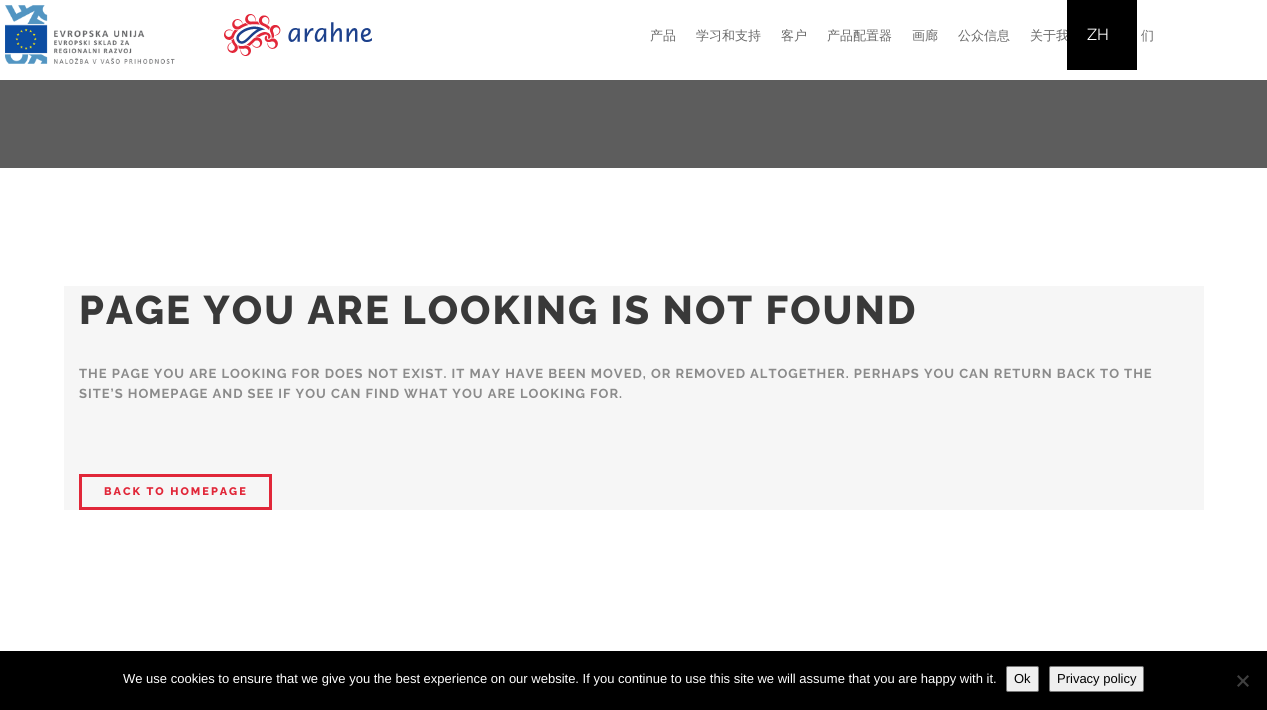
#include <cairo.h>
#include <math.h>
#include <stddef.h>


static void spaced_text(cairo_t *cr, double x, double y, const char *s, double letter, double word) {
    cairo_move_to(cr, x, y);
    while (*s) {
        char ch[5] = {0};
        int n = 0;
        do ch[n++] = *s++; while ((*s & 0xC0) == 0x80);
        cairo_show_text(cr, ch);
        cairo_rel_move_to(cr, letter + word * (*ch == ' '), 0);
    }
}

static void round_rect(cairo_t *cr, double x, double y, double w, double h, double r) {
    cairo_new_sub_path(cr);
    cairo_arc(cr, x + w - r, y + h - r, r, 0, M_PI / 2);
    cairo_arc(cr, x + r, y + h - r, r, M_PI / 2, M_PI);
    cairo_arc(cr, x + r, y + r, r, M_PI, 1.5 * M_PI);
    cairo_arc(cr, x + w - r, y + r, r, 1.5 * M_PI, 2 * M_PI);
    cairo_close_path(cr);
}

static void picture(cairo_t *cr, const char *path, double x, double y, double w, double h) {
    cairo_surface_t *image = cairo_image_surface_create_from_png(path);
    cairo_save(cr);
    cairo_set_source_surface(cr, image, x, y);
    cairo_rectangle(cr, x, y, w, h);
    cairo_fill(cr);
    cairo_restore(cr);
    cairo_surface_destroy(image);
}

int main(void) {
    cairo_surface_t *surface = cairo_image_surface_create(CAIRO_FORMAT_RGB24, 1267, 710);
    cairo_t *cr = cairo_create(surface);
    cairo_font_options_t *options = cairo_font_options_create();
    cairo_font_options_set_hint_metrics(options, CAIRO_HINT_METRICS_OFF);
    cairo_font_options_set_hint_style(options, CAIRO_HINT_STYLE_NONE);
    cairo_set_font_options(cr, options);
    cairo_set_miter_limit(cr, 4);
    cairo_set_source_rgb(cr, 1, 1, 1);
    cairo_paint(cr);
    picture(cr, "img1.png", 5, 5, 170, 59);
    picture(cr, "img2.png", 224, 14, 148, 42);
    cairo_select_font_face(cr, "WenQuanYi Zen Hei Medium", CAIRO_FONT_SLANT_NORMAL, CAIRO_FONT_WEIGHT_NORMAL);
    cairo_set_font_size(cr, 13);
    cairo_set_source_rgb(cr, 0.412, 0.412, 0.412);
    cairo_move_to(cr, 650, 40);
    cairo_show_text(cr, "产品");
    cairo_move_to(cr, 696, 40);
    cairo_show_text(cr, "学习和支持");
    cairo_move_to(cr, 781, 40);
    cairo_show_text(cr, "客户");
    cairo_move_to(cr, 827, 40);
    cairo_show_text(cr, "产品配置器");
    cairo_move_to(cr, 912, 40);
    cairo_show_text(cr, "画廊");
    cairo_move_to(cr, 958, 40);
    cairo_show_text(cr, "公众信息");
    cairo_move_to(cr, 1030, 40);
    cairo_show_text(cr, "关于我");
    cairo_set_source_rgb(cr, 0, 0, 0);
    cairo_rectangle(cr, 1067, 0, 70, 70);
    cairo_fill(cr);
    cairo_select_font_face(cr, "Raleway", CAIRO_FONT_SLANT_NORMAL, CAIRO_FONT_WEIGHT_NORMAL);
    cairo_set_font_size(cr, 16);
    cairo_set_source_rgb(cr, 1, 1, 1);
    cairo_move_to(cr, 1087, 40);
    cairo_show_text(cr, "ZH");
    cairo_select_font_face(cr, "WenQuanYi Zen Hei Medium", CAIRO_FONT_SLANT_NORMAL, CAIRO_FONT_WEIGHT_NORMAL);
    cairo_set_font_size(cr, 13);
    cairo_set_source_rgb(cr, 0.412, 0.412, 0.412);
    cairo_move_to(cr, 1141, 40);
    cairo_show_text(cr, "们");
    cairo_set_source_rgb(cr, 0.365, 0.365, 0.365);
    cairo_rectangle(cr, 0, 80, 1267, 88);
    cairo_fill(cr);
    cairo_set_source_rgb(cr, 0.961, 0.961, 0.961);
    cairo_rectangle(cr, 64, 286, 1140, 224);
    cairo_fill(cr);
    cairo_select_font_face(cr, "Raleway ExtraBold", CAIRO_FONT_SLANT_NORMAL, CAIRO_FONT_WEIGHT_NORMAL);
    cairo_set_font_size(cr, 40);
    cairo_set_source_rgb(cr, 0.224, 0.224, 0.224);
    spaced_text(cr, 79, 324, "PAGE YOU ARE LOOKING IS NOT FOUND", 2, 0);
    cairo_select_font_face(cr, "Raleway", CAIRO_FONT_SLANT_NORMAL, CAIRO_FONT_WEIGHT_BOLD);
    cairo_set_font_size(cr, 13);
    cairo_set_source_rgb(cr, 0.545, 0.545, 0.545);
    spaced_text(cr, 79, 378, "THE PAGE YOU ARE LOOKING FOR DOES NOT EXIST. IT MAY HAVE BEEN MOVED, OR REMOVED ALTOGETHER. PERHAPS YOU CAN RETURN BACK TO THE", 1, 0);
    spaced_text(cr, 79, 398, "SITE’S HOMEPAGE AND SEE IF YOU CAN FIND WHAT YOU ARE LOOKING FOR.", 1, 0);
    cairo_rectangle(cr, 80.5, 475.5, 190, 33);
    cairo_set_source_rgb(cr, 0.882, 0.153, 0.224);
    cairo_set_line_width(cr, 3);
    cairo_stroke(cr);
    cairo_select_font_face(cr, "Raleway ExtraBold", CAIRO_FONT_SLANT_NORMAL, CAIRO_FONT_WEIGHT_NORMAL);
    cairo_set_font_size(cr, 11);
    spaced_text(cr, 104, 495, "BACK TO HOMEPAGE", 2, 0);
    cairo_set_source_rgb(cr, 0, 0, 0);
    cairo_rectangle(cr, 0, 651, 1267, 59);
    cairo_fill(cr);
    cairo_select_font_face(cr, "Liberation Sans", CAIRO_FONT_SLANT_NORMAL, CAIRO_FONT_WEIGHT_NORMAL);
    cairo_set_font_size(cr, 13);
    cairo_set_source_rgb(cr, 1, 1, 1);
    cairo_move_to(cr, 123, 683);
    cairo_show_text(cr, "We use cookies to ensure that we give you the best experience on our website. If you continue to use this site we will assume that you are happy with it.");
    cairo_set_source_rgb(cr, 0.937, 0.937, 0.937);
    round_rect(cr, 1006.5, 666.5, 32, 25, 1.5);
    cairo_fill_preserve(cr);
    cairo_set_source_rgb(cr, 0.463, 0.463, 0.463);
    cairo_set_line_width(cr, 1);
    cairo_stroke(cr);
    cairo_set_source_rgb(cr, 0, 0, 0);
    cairo_move_to(cr, 1014, 683);
    cairo_show_text(cr, "Ok");
    cairo_set_source_rgb(cr, 0.937, 0.937, 0.937);
    round_rect(cr, 1049.5, 666.5, 94, 25, 1.5);
    cairo_fill_preserve(cr);
    cairo_set_source_rgb(cr, 0.463, 0.463, 0.463);
    cairo_stroke(cr);
    cairo_set_source_rgb(cr, 0, 0, 0);
    cairo_move_to(cr, 1057, 683);
    cairo_show_text(cr, "Privacy policy");
    cairo_set_source_rgb(cr, 0.251, 0.251, 0.251);
    cairo_new_path(cr);
    cairo_move_to(cr, 1247.5, 675);
    cairo_line_to(cr, 1249, 676.5);
    cairo_line_to(cr, 1238.5, 687);
    cairo_line_to(cr, 1237, 685.5);
    cairo_close_path(cr);
    cairo_fill(cr);
    cairo_new_path(cr);
    cairo_move_to(cr, 1237, 676.5);
    cairo_line_to(cr, 1238.5, 675);
    cairo_line_to(cr, 1249, 685.5);
    cairo_line_to(cr, 1247.5, 687);
    cairo_close_path(cr);
    cairo_fill(cr);
    cairo_surface_write_to_png(surface, "page.png");
    cairo_font_options_destroy(options);
    cairo_destroy(cr);
    cairo_surface_destroy(surface);
    return 0;
}
